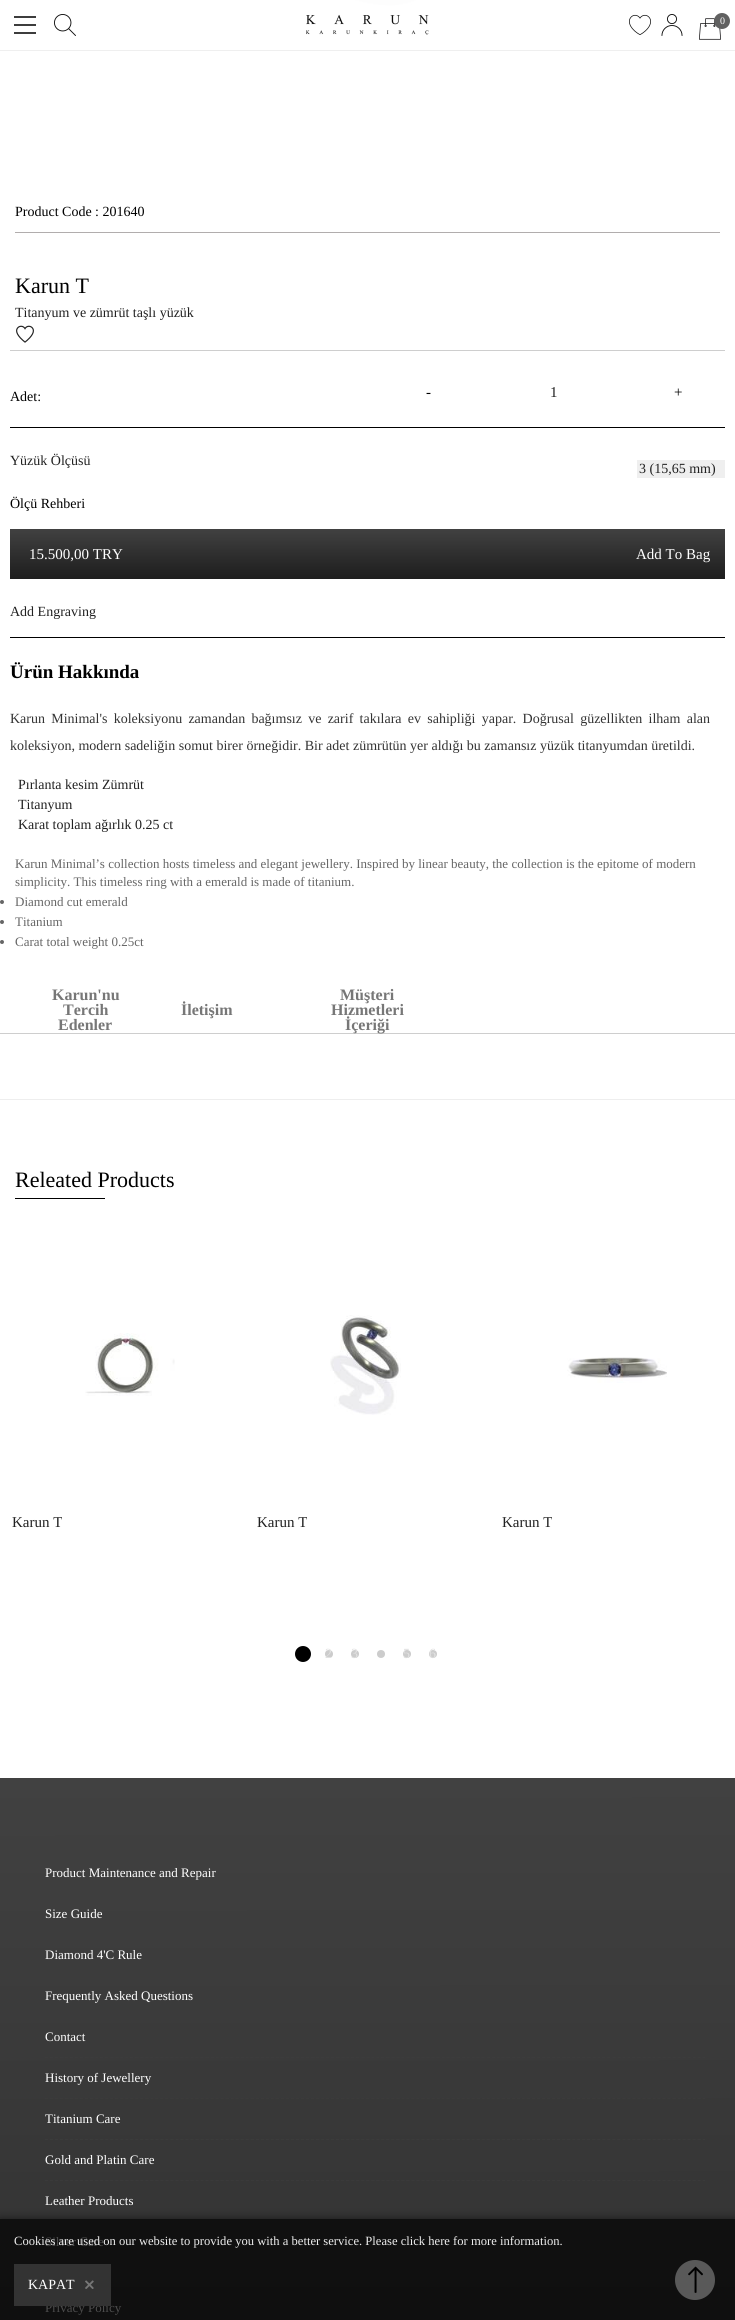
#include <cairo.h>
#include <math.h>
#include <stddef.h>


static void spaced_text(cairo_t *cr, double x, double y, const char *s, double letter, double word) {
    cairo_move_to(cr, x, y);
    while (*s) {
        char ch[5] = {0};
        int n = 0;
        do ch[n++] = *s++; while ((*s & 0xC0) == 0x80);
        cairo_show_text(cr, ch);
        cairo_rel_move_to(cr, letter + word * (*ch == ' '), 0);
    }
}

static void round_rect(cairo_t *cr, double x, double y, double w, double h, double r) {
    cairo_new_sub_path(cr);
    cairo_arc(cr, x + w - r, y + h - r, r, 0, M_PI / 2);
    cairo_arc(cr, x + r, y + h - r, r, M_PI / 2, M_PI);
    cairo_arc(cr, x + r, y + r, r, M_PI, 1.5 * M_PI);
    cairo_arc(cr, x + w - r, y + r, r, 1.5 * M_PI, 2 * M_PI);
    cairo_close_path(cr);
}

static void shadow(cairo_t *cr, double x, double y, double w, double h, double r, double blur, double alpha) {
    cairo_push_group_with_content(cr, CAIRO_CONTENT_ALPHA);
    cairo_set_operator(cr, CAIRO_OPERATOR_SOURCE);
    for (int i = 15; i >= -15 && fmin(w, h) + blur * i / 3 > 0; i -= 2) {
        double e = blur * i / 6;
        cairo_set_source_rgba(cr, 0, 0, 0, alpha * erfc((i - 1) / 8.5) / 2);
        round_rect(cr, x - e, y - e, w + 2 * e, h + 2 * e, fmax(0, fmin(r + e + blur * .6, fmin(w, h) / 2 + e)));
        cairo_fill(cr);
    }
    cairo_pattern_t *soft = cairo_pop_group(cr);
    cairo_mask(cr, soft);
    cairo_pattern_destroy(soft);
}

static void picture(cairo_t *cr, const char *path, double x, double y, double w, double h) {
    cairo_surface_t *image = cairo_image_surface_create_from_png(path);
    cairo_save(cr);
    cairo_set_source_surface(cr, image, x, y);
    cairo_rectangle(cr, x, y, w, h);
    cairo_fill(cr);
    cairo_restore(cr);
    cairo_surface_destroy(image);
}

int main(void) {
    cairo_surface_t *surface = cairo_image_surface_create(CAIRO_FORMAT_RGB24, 735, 2320);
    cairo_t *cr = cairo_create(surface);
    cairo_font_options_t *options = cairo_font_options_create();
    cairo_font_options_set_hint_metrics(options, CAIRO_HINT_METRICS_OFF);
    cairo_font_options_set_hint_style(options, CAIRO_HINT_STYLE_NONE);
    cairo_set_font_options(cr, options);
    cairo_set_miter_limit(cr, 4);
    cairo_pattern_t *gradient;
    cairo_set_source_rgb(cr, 1, 1, 1);
    cairo_paint(cr);
    cairo_set_source_rgb(cr, 0.937, 0.937, 0.937);
    cairo_rectangle(cr, 0, 50, 735, 1);
    cairo_fill(cr);
    cairo_set_source_rgb(cr, 0.239, 0.239, 0.239);
    cairo_rectangle(cr, 14, 32, 22, 2);
    cairo_fill(cr);
    cairo_rectangle(cr, 14, 16, 22, 2);
    cairo_fill(cr);
    cairo_rectangle(cr, 14, 24, 22, 2);
    cairo_fill(cr);
    picture(cr, "img1.png", 54, 14, 22, 22);
    picture(cr, "img2.png", 306, 14, 123, 21);
    picture(cr, "img3.png", 629, 14, 22, 21);
    picture(cr, "img4.png", 661, 14, 22, 22);
    picture(cr, "img5.png", 699, 18, 22, 22);
    cairo_set_source_rgb(cr, 0.38, 0.38, 0.38);
    cairo_arc(cr, 722, 21, 8, 0, 2 * M_PI);
    cairo_fill(cr);
    cairo_select_font_face(cr, "Liberation Serif", CAIRO_FONT_SLANT_NORMAL, CAIRO_FONT_WEIGHT_NORMAL);
    cairo_set_font_size(cr, 10);
    cairo_set_source_rgb(cr, 1, 1, 1);
    cairo_move_to(cr, 720, 24);
    cairo_show_text(cr, "0");
    picture(cr, "img6.png", 347, 0, 72, 6);
    cairo_set_source_rgb(cr, 0.694, 0.678, 0.678);
    cairo_rectangle(cr, 15, 232, 705, 1);
    cairo_fill(cr);
    cairo_set_font_size(cr, 14);
    cairo_set_source_rgb(cr, 0, 0, 0);
    cairo_move_to(cr, 15, 216);
    cairo_show_text(cr, "Product Code : 201640");
    cairo_set_font_size(cr, 22);
    cairo_move_to(cr, 15, 293);
    cairo_show_text(cr, "Karun T");
    cairo_set_font_size(cr, 14);
    cairo_set_source_rgb(cr, 0.129, 0.129, 0.129);
    cairo_move_to(cr, 15, 317);
    cairo_show_text(cr, "Titanyum ve zümrüt taşlı yüzük");
    picture(cr, "img7.png", 16, 325, 18, 18);
    cairo_set_source_rgb(cr, 0.808, 0.808, 0.808);
    cairo_rectangle(cr, 10, 350, 715, 1);
    cairo_fill(cr);
    cairo_set_source_rgb(cr, 0, 0, 0);
    cairo_rectangle(cr, 10, 427, 715, 1);
    cairo_fill(cr);
    cairo_move_to(cr, 10, 401);
    cairo_show_text(cr, "Adet:");
    cairo_set_font_size(cr, 15);
    cairo_move_to(cr, 426, 397);
    cairo_show_text(cr, "-");
    cairo_set_source_rgb(cr, 0.129, 0.129, 0.129);
    cairo_move_to(cr, 550, 397);
    cairo_show_text(cr, "1");
    cairo_set_source_rgb(cr, 0, 0, 0);
    cairo_move_to(cr, 674, 397);
    cairo_show_text(cr, "+");
    cairo_set_font_size(cr, 14);
    cairo_set_source_rgb(cr, 0.129, 0.129, 0.129);
    cairo_move_to(cr, 10, 465);
    cairo_show_text(cr, "Yüzük Ölçüsü");
    cairo_set_source_rgb(cr, 0.937, 0.937, 0.937);
    cairo_rectangle(cr, 637, 460, 88, 18);
    cairo_fill(cr);
    cairo_set_source_rgb(cr, 0.129, 0.129, 0.129);
    cairo_move_to(cr, 639, 473);
    cairo_show_text(cr, "3 (15,65 mm)");
    cairo_set_source_rgb(cr, 0, 0, 0);
    cairo_move_to(cr, 10, 508);
    cairo_show_text(cr, "Ölçü Rehberi");
    gradient = cairo_pattern_create_linear(368, 529, 368, 579);
    cairo_pattern_add_color_stop_rgba(gradient, 0, 0.255, 0.255, 0.255, 1);
    cairo_pattern_add_color_stop_rgba(gradient, 0.25, 0.22, 0.22, 0.22, 1);
    cairo_pattern_add_color_stop_rgba(gradient, 0.5, 0.184, 0.184, 0.184, 1);
    cairo_pattern_add_color_stop_rgba(gradient, 0.75, 0.149, 0.149, 0.149, 1);
    cairo_pattern_add_color_stop_rgba(gradient, 1, 0.118, 0.118, 0.118, 1);
    cairo_set_source(cr, gradient);
    cairo_pattern_destroy(gradient);
    cairo_rectangle(cr, 10, 529, 715, 50);
    cairo_fill(cr);
    cairo_set_font_size(cr, 15);
    cairo_set_source_rgb(cr, 1, 1, 1);
    cairo_move_to(cr, 29, 559);
    cairo_show_text(cr, "15.500,00 TRY");
    cairo_move_to(cr, 636, 559);
    cairo_show_text(cr, "Add To Bag");
    cairo_set_source_rgb(cr, 0, 0, 0);
    cairo_rectangle(cr, 10, 637, 715, 1);
    cairo_fill(cr);
    cairo_set_font_size(cr, 14);
    cairo_set_source_rgb(cr, 0.129, 0.129, 0.129);
    cairo_move_to(cr, 10, 616);
    cairo_show_text(cr, "Add Engraving");
    cairo_select_font_face(cr, "Liberation Serif", CAIRO_FONT_SLANT_NORMAL, CAIRO_FONT_WEIGHT_BOLD);
    cairo_set_font_size(cr, 19);
    cairo_set_source_rgb(cr, 0, 0, 0);
    cairo_move_to(cr, 10, 678);
    cairo_show_text(cr, "Ürün Hakkında");
    cairo_select_font_face(cr, "Liberation Serif", CAIRO_FONT_SLANT_NORMAL, CAIRO_FONT_WEIGHT_NORMAL);
    cairo_set_font_size(cr, 14);
    cairo_set_source_rgb(cr, 0.2, 0.2, 0.2);
    spaced_text(cr, 10, 723, "Karun Minimal's koleksiyonu zamandan bağımsız ve zarif takılara ev sahipliği yapar. Doğrusal güzellikten ilham alan", 0, 2.75);
    cairo_move_to(cr, 10, 750);
    cairo_show_text(cr, "koleksiyon, modern sadeliğin somut birer örneğidir. Bir adet zümrütün yer aldığı bu zamansız yüzük titanyumdan üretildi.");
    cairo_set_source_rgb(cr, 0.129, 0.129, 0.129);
    cairo_move_to(cr, 18, 789);
    cairo_show_text(cr, "Pırlanta kesim Zümrüt");
    cairo_move_to(cr, 18, 809);
    cairo_show_text(cr, "Titanyum");
    cairo_move_to(cr, 18, 829);
    cairo_show_text(cr, "Karat toplam ağırlık 0.25 ct");
    cairo_set_font_size(cr, 13);
    cairo_set_source_rgb(cr, 0.4, 0.4, 0.4);
    cairo_move_to(cr, 15, 868);
    cairo_show_text(cr, "Karun Minimal’s collection hosts timeless and elegant jewellery. Inspired by linear beauty, the collection is the epitome of modern");
    cairo_move_to(cr, 15, 886);
    cairo_show_text(cr, "simplicity. This timeless ring with a emerald is made of titanium.");
    cairo_new_path(cr);
    cairo_arc(cr, 2, 902, 2, 0, 2 * M_PI);
    cairo_fill(cr);
    cairo_move_to(cr, 15, 906);
    cairo_show_text(cr, "Diamond cut emerald");
    cairo_new_path(cr);
    cairo_arc(cr, 2, 922, 2, 0, 2 * M_PI);
    cairo_fill(cr);
    cairo_move_to(cr, 15, 926);
    cairo_show_text(cr, "Titanium");
    cairo_new_path(cr);
    cairo_arc(cr, 2, 942, 2, 0, 2 * M_PI);
    cairo_fill(cr);
    cairo_move_to(cr, 15, 946);
    cairo_show_text(cr, "Carat total weight 0.25ct");
    cairo_set_source_rgb(cr, 0.933, 0.933, 0.933);
    cairo_rectangle(cr, 0, 1099, 735, 1);
    cairo_fill(cr);
    cairo_set_source_rgb(cr, 0.808, 0.808, 0.808);
    cairo_rectangle(cr, 0, 1033, 735, 1);
    cairo_fill(cr);
    cairo_select_font_face(cr, "Liberation Serif", CAIRO_FONT_SLANT_NORMAL, CAIRO_FONT_WEIGHT_BOLD);
    cairo_set_font_size(cr, 16);
    cairo_set_source_rgb(cr, 0.467, 0.467, 0.467);
    cairo_move_to(cr, 52, 1000);
    cairo_show_text(cr, "Karun'nu");
    cairo_move_to(cr, 63, 1015);
    cairo_show_text(cr, "Tercih");
    cairo_move_to(cr, 58, 1030);
    cairo_show_text(cr, "Edenler");
    cairo_move_to(cr, 181, 1015);
    cairo_show_text(cr, "İletişim");
    cairo_move_to(cr, 340, 1000);
    cairo_show_text(cr, "Müşteri");
    cairo_move_to(cr, 331, 1015);
    cairo_show_text(cr, "Hizmetleri");
    cairo_move_to(cr, 345, 1030);
    cairo_show_text(cr, "İçeriği");
    cairo_select_font_face(cr, "Liberation Serif", CAIRO_FONT_SLANT_NORMAL, CAIRO_FONT_WEIGHT_NORMAL);
    cairo_set_font_size(cr, 22);
    cairo_set_source_rgb(cr, 0, 0, 0);
    cairo_move_to(cr, 15, 1187);
    cairo_show_text(cr, "Releated Products");
    cairo_rectangle(cr, 15, 1198, 90, 1);
    cairo_fill(cr);
    picture(cr, "img8.png", 85, 1333, 90, 63);
    cairo_set_font_size(cr, 15);
    cairo_set_source_rgb(cr, 0.129, 0.129, 0.129);
    cairo_move_to(cr, 12, 1527);
    cairo_show_text(cr, "Karun T");
    picture(cr, "img9.png", 330, 1315, 71, 100);
    cairo_move_to(cr, 257, 1527);
    cairo_show_text(cr, "Karun T");
    picture(cr, "img10.png", 567, 1357, 100, 26);
    cairo_move_to(cr, 502, 1527);
    cairo_show_text(cr, "Karun T");
    cairo_set_source_rgb(cr, 0, 0, 0);
    cairo_new_path(cr);
    cairo_arc(cr, 303, 1654, 8, 0, 2 * M_PI);
    cairo_fill(cr);
    cairo_set_source_rgb(cr, 0.8, 0.8, 0.8);
    cairo_arc(cr, 329, 1654, 4, 0, 2 * M_PI);
    cairo_fill(cr);
    cairo_set_font_size(cr, 14);
    cairo_set_source_rgb(cr, 0.882, 0.882, 0.882);
    cairo_move_to(cr, 325, 1658);
    cairo_show_text(cr, "2");
    cairo_set_source_rgb(cr, 0.8, 0.8, 0.8);
    cairo_new_path(cr);
    cairo_arc(cr, 355, 1654, 4, 0, 2 * M_PI);
    cairo_fill(cr);
    cairo_set_source_rgb(cr, 0.882, 0.882, 0.882);
    cairo_move_to(cr, 351, 1658);
    cairo_show_text(cr, "3");
    cairo_set_source_rgb(cr, 0.8, 0.8, 0.8);
    cairo_new_path(cr);
    cairo_arc(cr, 381, 1654, 4, 0, 2 * M_PI);
    cairo_fill(cr);
    cairo_arc(cr, 407, 1654, 4, 0, 2 * M_PI);
    cairo_fill(cr);
    cairo_set_source_rgb(cr, 0.882, 0.882, 0.882);
    cairo_move_to(cr, 403, 1658);
    cairo_show_text(cr, "5");
    cairo_set_source_rgb(cr, 0.8, 0.8, 0.8);
    cairo_new_path(cr);
    cairo_arc(cr, 433, 1654, 4, 0, 2 * M_PI);
    cairo_fill(cr);
    cairo_set_source_rgb(cr, 0.882, 0.882, 0.882);
    cairo_move_to(cr, 429, 1658);
    cairo_show_text(cr, "6");
    gradient = cairo_pattern_create_linear(367, 1778, 368, 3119);
    cairo_pattern_add_color_stop_rgba(gradient, 0, 0.255, 0.255, 0.255, 1);
    cairo_pattern_add_color_stop_rgba(gradient, 0.25, 0.22, 0.22, 0.22, 1);
    cairo_pattern_add_color_stop_rgba(gradient, 0.5, 0.184, 0.184, 0.184, 1);
    cairo_pattern_add_color_stop_rgba(gradient, 0.75, 0.149, 0.149, 0.149, 1);
    cairo_pattern_add_color_stop_rgba(gradient, 1, 0.118, 0.118, 0.118, 1);
    cairo_set_source(cr, gradient);
    cairo_pattern_destroy(gradient);
    cairo_rectangle(cr, 0, 1778, 735, 441);
    cairo_fill(cr);
    gradient = cairo_pattern_create_linear(367, 1778, 368, 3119);
    cairo_pattern_add_color_stop_rgba(gradient, 0, 0.078, 0.078, 0.078, 1);
    cairo_pattern_add_color_stop_rgba(gradient, 0.25, 0.067, 0.067, 0.067, 1);
    cairo_pattern_add_color_stop_rgba(gradient, 0.5, 0.055, 0.055, 0.055, 1);
    cairo_pattern_add_color_stop_rgba(gradient, 0.75, 0.043, 0.043, 0.043, 1);
    cairo_pattern_add_color_stop_rgba(gradient, 1, 0.035, 0.035, 0.035, 1);
    cairo_set_source(cr, gradient);
    cairo_pattern_destroy(gradient);
    cairo_rectangle(cr, 0, 2219, 735, 101);
    cairo_fill(cr);
    cairo_set_font_size(cr, 13);
    cairo_set_source_rgb(cr, 1, 1, 1);
    cairo_move_to(cr, 45, 1877);
    cairo_show_text(cr, "Product Maintenance and Repair");
    cairo_move_to(cr, 45, 1918);
    cairo_show_text(cr, "Size Guide");
    cairo_move_to(cr, 45, 1959);
    cairo_show_text(cr, "Diamond 4'C Rule");
    cairo_move_to(cr, 45, 2000);
    cairo_show_text(cr, "Frequently Asked Questions");
    cairo_new_path(cr);
    cairo_move_to(cr, 45, 2057.5);
    cairo_line_to(cr, 705, 2057.5);
    cairo_set_source_rgb(cr, 0.235, 0.235, 0.235);
    cairo_set_line_width(cr, 1);
    cairo_set_dash(cr, (double[]){3, 2.02}, 2, 0);
    cairo_stroke(cr);
    cairo_set_source_rgb(cr, 1, 1, 1);
    cairo_move_to(cr, 45, 2041);
    cairo_show_text(cr, "Contact");
    cairo_new_path(cr);
    cairo_move_to(cr, 45, 2098.5);
    cairo_line_to(cr, 705, 2098.5);
    cairo_set_source_rgb(cr, 0.231, 0.231, 0.231);
    cairo_stroke(cr);
    cairo_set_source_rgb(cr, 1, 1, 1);
    cairo_move_to(cr, 45, 2082);
    cairo_show_text(cr, "History of Jewellery");
    cairo_new_path(cr);
    cairo_move_to(cr, 45, 2139.5);
    cairo_line_to(cr, 705, 2139.5);
    cairo_set_source_rgb(cr, 0.231, 0.231, 0.231);
    cairo_stroke(cr);
    cairo_set_source_rgb(cr, 1, 1, 1);
    cairo_move_to(cr, 45, 2123);
    cairo_show_text(cr, "Titanium Care");
    cairo_new_path(cr);
    cairo_move_to(cr, 45, 2180.5);
    cairo_line_to(cr, 705, 2180.5);
    cairo_set_source_rgb(cr, 0.227, 0.227, 0.227);
    cairo_stroke(cr);
    cairo_set_source_rgb(cr, 1, 1, 1);
    cairo_move_to(cr, 45, 2164);
    cairo_show_text(cr, "Gold and Platin Care");
    cairo_move_to(cr, 45, 2205);
    cairo_show_text(cr, "Leather Products");
    cairo_set_source_rgb(cr, 0.302, 0.302, 0.302);
    cairo_move_to(cr, 45, 2246);
    cairo_show_text(cr, "Silver Care");
    cairo_move_to(cr, 45, 2312);
    cairo_show_text(cr, "Privacy Policy");
    cairo_save(cr);
    cairo_rectangle(cr, 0, 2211, 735, 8);
    cairo_clip(cr);
    cairo_set_source_rgb(cr, 0, 0, 0);
    shadow(cr, 0, 2219, 735, 101, 0, 4.5, 0.53);
    cairo_restore(cr);
    cairo_set_font_size(cr, 12.6);
    cairo_set_source_rgb(cr, 0.933, 0.933, 0.933);
    cairo_move_to(cr, 14, 2245);
    cairo_show_text(cr, "Cookies are used on our website to provide you with a better service. Please click here for more information.");
    cairo_set_source_rgb(cr, 0.2, 0.2, 0.2);
    cairo_rectangle(cr, 14, 2264, 97, 42);
    cairo_fill(cr);
    cairo_set_font_size(cr, 14);
    cairo_set_source_rgb(cr, 1, 1, 1);
    cairo_move_to(cr, 28, 2289);
    cairo_show_text(cr, "KAPAT");
    picture(cr, "img11.png", 85, 2280, 9, 9);
    cairo_set_source_rgb(cr, 0.349, 0.349, 0.349);
    cairo_arc(cr, 695, 2280, 20, 0, 2 * M_PI);
    cairo_fill(cr);
    picture(cr, "img12.png", 688, 2266, 15, 27);
    cairo_surface_write_to_png(surface, "page.png");
    cairo_font_options_destroy(options);
    cairo_destroy(cr);
    cairo_surface_destroy(surface);
    return 0;
}
